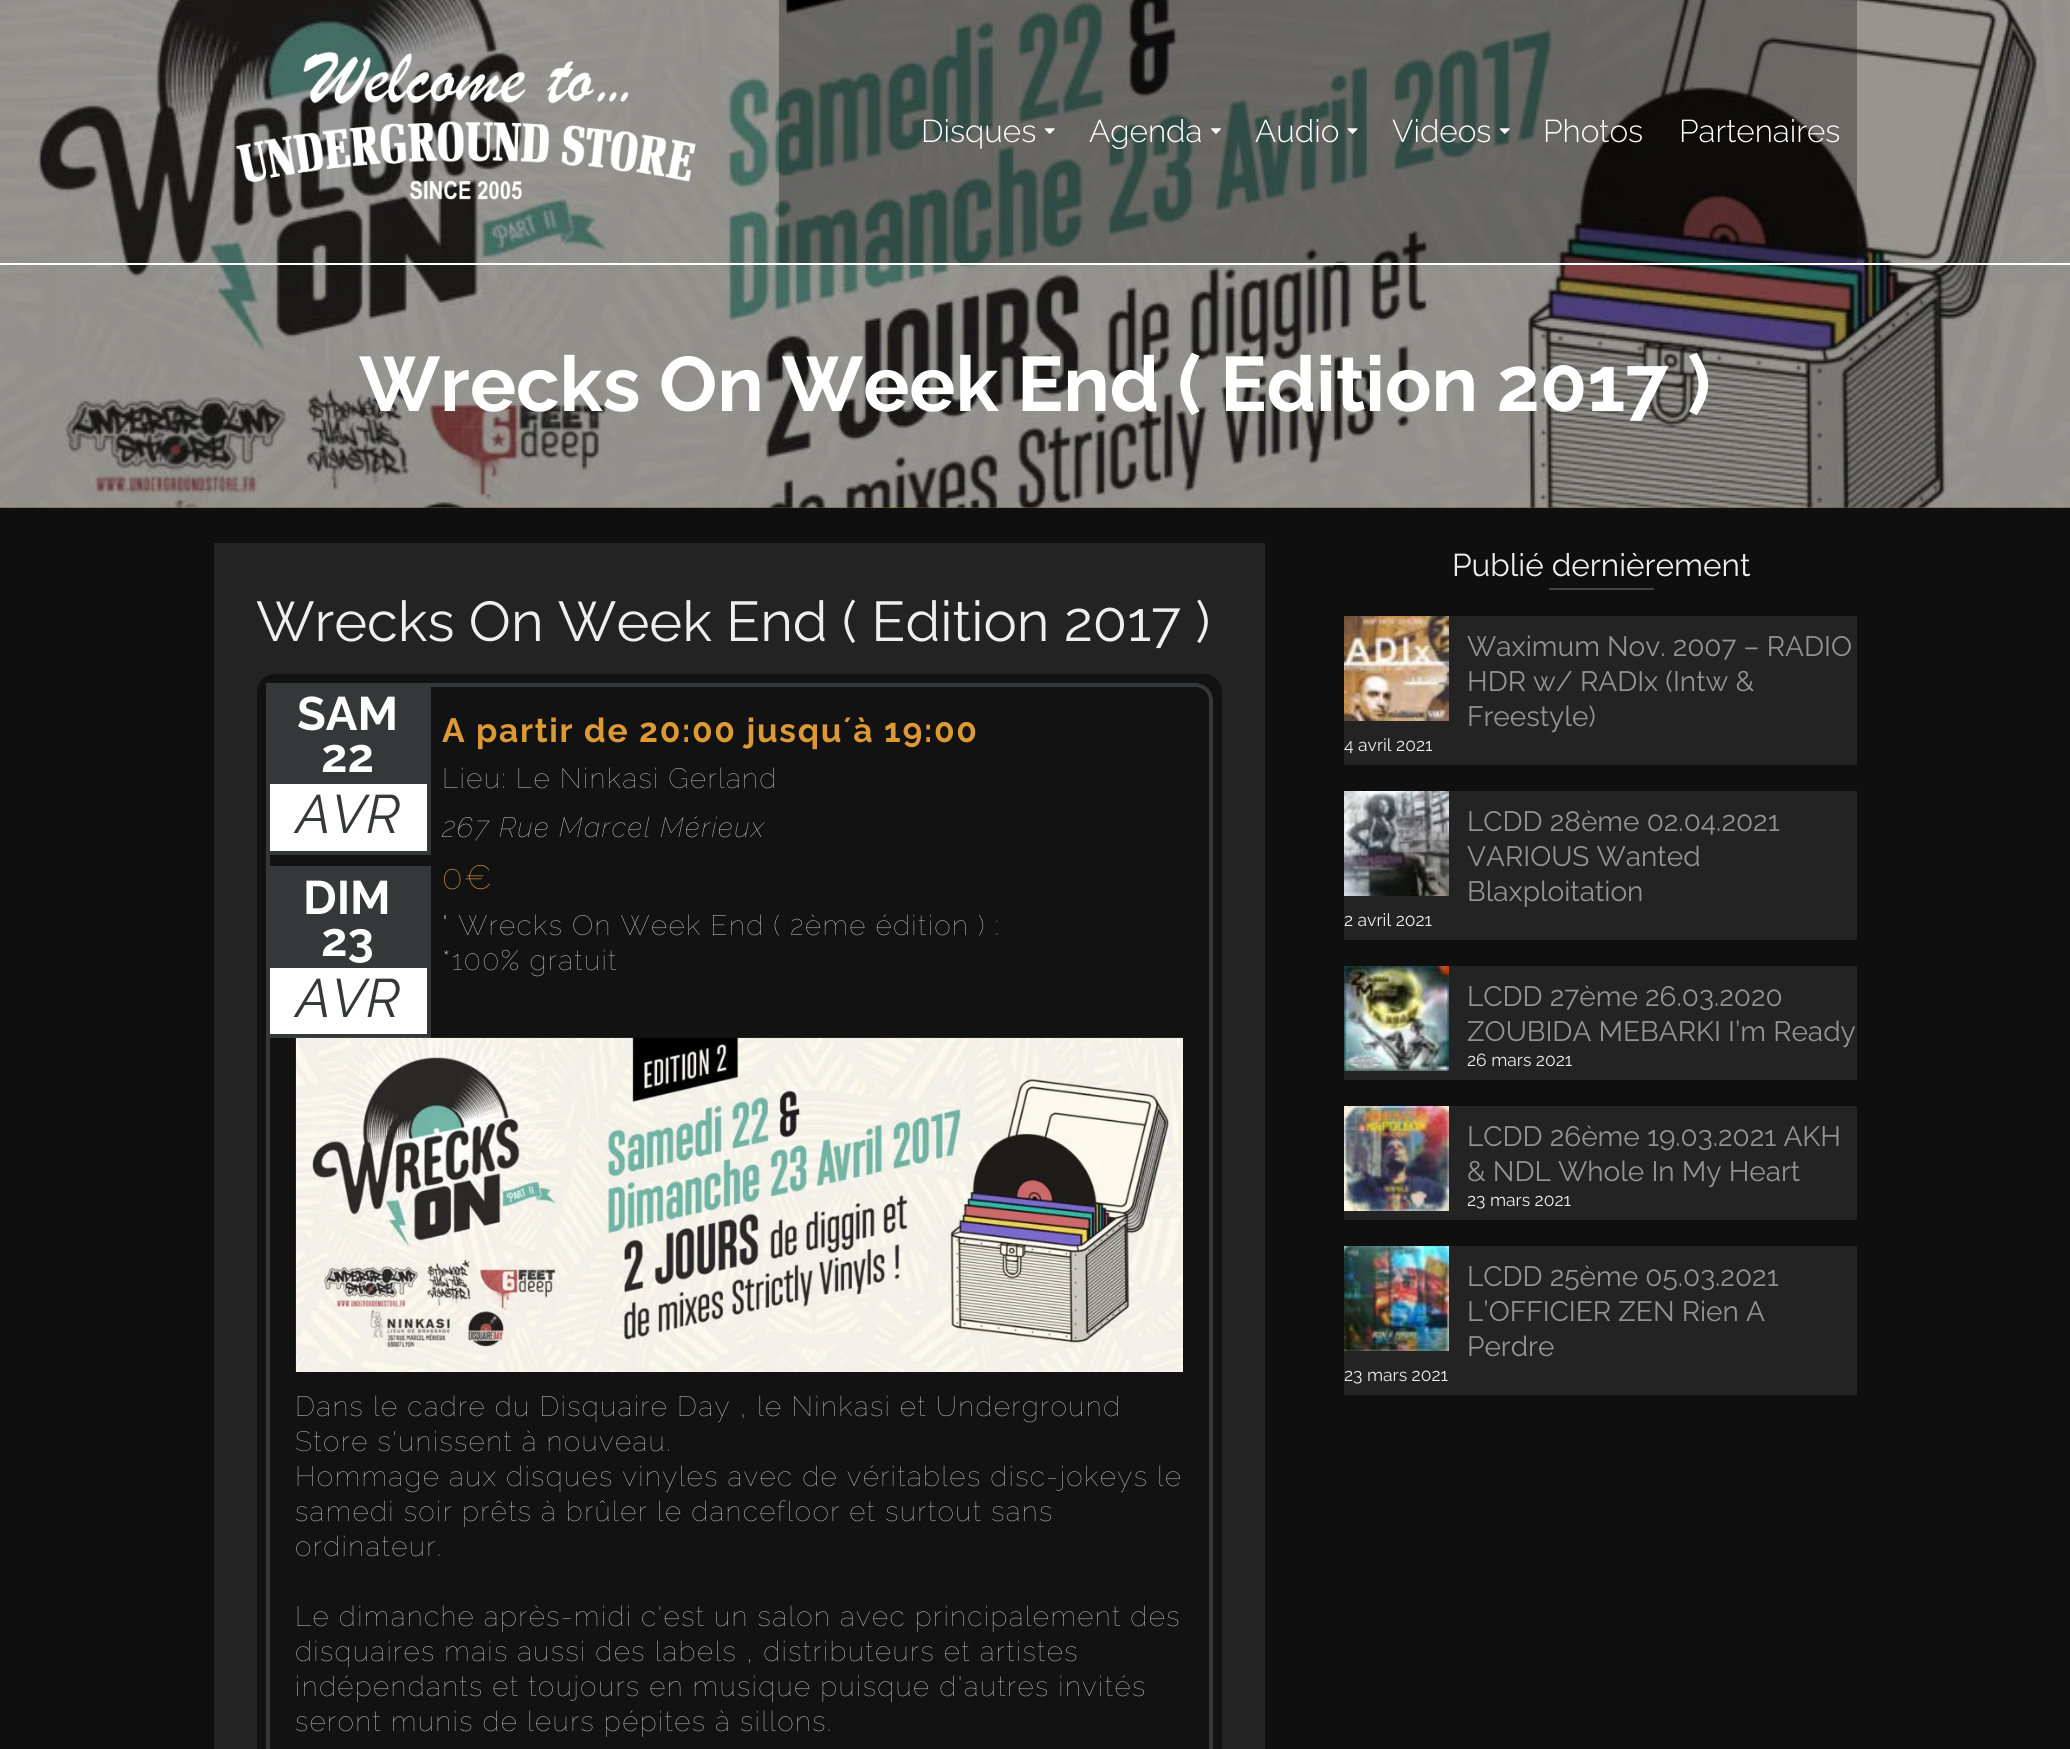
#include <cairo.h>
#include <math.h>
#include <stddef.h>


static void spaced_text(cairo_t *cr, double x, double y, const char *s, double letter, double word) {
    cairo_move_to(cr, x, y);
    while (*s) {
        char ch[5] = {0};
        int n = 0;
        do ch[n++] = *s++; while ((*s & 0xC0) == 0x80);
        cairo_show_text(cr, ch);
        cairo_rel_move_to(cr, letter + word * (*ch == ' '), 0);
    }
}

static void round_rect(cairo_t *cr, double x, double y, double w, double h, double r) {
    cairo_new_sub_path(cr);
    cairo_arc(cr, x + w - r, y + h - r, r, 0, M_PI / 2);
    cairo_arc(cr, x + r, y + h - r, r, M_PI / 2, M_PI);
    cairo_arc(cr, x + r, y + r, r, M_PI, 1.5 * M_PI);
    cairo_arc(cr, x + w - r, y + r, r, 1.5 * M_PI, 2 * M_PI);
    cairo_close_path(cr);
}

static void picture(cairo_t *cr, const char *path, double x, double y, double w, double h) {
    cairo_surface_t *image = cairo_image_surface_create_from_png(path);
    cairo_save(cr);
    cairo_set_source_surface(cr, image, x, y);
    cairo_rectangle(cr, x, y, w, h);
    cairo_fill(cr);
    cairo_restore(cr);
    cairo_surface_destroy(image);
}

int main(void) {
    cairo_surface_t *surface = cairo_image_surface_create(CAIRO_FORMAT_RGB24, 2070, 1749);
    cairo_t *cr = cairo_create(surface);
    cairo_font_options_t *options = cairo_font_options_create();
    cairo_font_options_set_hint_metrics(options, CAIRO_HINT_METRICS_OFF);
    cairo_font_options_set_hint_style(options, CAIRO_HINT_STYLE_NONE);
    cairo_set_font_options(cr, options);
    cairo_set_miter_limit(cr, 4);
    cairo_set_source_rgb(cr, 0.059, 0.059, 0.059);
    cairo_paint(cr);
    cairo_set_source_rgb(cr, 0.557, 0.318, 0.078);
    cairo_rectangle(cr, 0, 507, 2070, 1);
    cairo_fill(cr);
    picture(cr, "img6.png", 0, 0, 2070, 508);
    cairo_set_source_rgb(cr, 1, 1, 1);
    cairo_rectangle(cr, 0, 263, 2070, 2);
    cairo_fill(cr);
    picture(cr, "img1.png", 235, 51, 461, 149);
    cairo_set_source_rgba(cr, 0, 0, 0, 0.3);
    cairo_rectangle(cr, 779, 0, 1078, 263);
    cairo_fill(cr);
    cairo_select_font_face(cr, "Raleway Light", CAIRO_FONT_SLANT_NORMAL, CAIRO_FONT_WEIGHT_NORMAL);
    cairo_set_font_size(cr, 31.5);
    cairo_set_source_rgb(cr, 1, 1, 1);
    cairo_move_to(cr, 921, 142);
    cairo_show_text(cr, "Disques");
    picture(cr, "img2.png", 1044, 128, 11, 6);
    cairo_move_to(cr, 1089, 142);
    cairo_show_text(cr, "Agenda");
    picture(cr, "img3.png", 1211, 128, 10, 6);
    cairo_move_to(cr, 1255, 142);
    cairo_show_text(cr, "Audio");
    picture(cr, "img4.png", 1347, 128, 11, 6);
    cairo_move_to(cr, 1392, 142);
    cairo_show_text(cr, "Videos");
    picture(cr, "img5.png", 1499, 128, 11, 6);
    cairo_move_to(cr, 1543, 142);
    cairo_show_text(cr, "Photos");
    cairo_move_to(cr, 1679, 142);
    cairo_show_text(cr, "Partenaires");
    cairo_select_font_face(cr, "Raleway", CAIRO_FONT_SLANT_NORMAL, CAIRO_FONT_WEIGHT_BOLD);
    cairo_set_font_size(cr, 77);
    cairo_move_to(cr, 359, 411);
    cairo_show_text(cr, "Wrecks On Week End ( Edition 2017 )");
    cairo_set_source_rgb(cr, 0.137, 0.137, 0.137);
    cairo_rectangle(cr, 214, 543, 1051, 1206);
    cairo_fill(cr);
    cairo_select_font_face(cr, "Raleway", CAIRO_FONT_SLANT_NORMAL, CAIRO_FONT_WEIGHT_NORMAL);
    cairo_set_font_size(cr, 56);
    cairo_set_source_rgb(cr, 0.937, 0.937, 0.937);
    cairo_move_to(cr, 256, 641);
    cairo_show_text(cr, "Wrecks On Week End ( Edition 2017 )");
    cairo_set_source_rgb(cr, 0.071, 0.071, 0.071);
    round_rect(cr, 257, 674, 965, 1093, 18);
    cairo_fill(cr);
    cairo_new_path(cr);
    cairo_move_to(cr, 284, 685);
    cairo_line_to(cr, 1195, 685);
    cairo_curve_to(cr, 1204, 685, 1211, 692, 1211, 701);
    cairo_line_to(cr, 1211, 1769);
    cairo_line_to(cr, 268, 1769);
    cairo_line_to(cr, 268, 701);
    cairo_curve_to(cr, 268, 692, 275, 685, 284, 685);
    cairo_close_path(cr);
    cairo_set_source_rgb(cr, 0.204, 0.22, 0.22);
    cairo_set_line_width(cr, 4);
    cairo_stroke(cr);
    cairo_rectangle(cr, 266, 683, 165, 101);
    cairo_fill(cr);
    cairo_select_font_face(cr, "Raleway", CAIRO_FONT_SLANT_NORMAL, CAIRO_FONT_WEIGHT_BOLD);
    cairo_set_font_size(cr, 47);
    cairo_set_source_rgb(cr, 1, 1, 1);
    cairo_move_to(cr, 297, 730);
    cairo_show_text(cr, "SAM");
    cairo_move_to(cr, 321, 772);
    cairo_show_text(cr, "22");
    cairo_rectangle(cr, 270, 784, 157, 67);
    cairo_fill(cr);
    cairo_set_source_rgb(cr, 0.204, 0.22, 0.22);
    cairo_rectangle(cr, 427, 784, 4, 70);
    cairo_fill(cr);
    cairo_rectangle(cr, 266, 851, 165, 4);
    cairo_fill(cr);
    cairo_select_font_face(cr, "Raleway", CAIRO_FONT_SLANT_ITALIC, CAIRO_FONT_WEIGHT_NORMAL);
    cairo_set_font_size(cr, 54);
    cairo_move_to(cr, 296, 833);
    cairo_show_text(cr, "AVR");
    cairo_select_font_face(cr, "Raleway", CAIRO_FONT_SLANT_NORMAL, CAIRO_FONT_WEIGHT_BOLD);
    cairo_set_font_size(cr, 33.6);
    cairo_set_source_rgb(cr, 0.867, 0.6, 0.2);
    spaced_text(cr, 442, 742, "A partir de 20:00 jusqu´à 19:00", 1.7, 0);
    cairo_select_font_face(cr, "Raleway Thin", CAIRO_FONT_SLANT_NORMAL, CAIRO_FONT_WEIGHT_NORMAL);
    cairo_set_font_size(cr, 28);
    cairo_set_source_rgb(cr, 0.749, 0.749, 0.749);
    spaced_text(cr, 442, 788, "Lieu: Le Ninkasi Gerland", 1.4, 0);
    cairo_select_font_face(cr, "Raleway Thin", CAIRO_FONT_SLANT_ITALIC, CAIRO_FONT_WEIGHT_NORMAL);
    spaced_text(cr, 442, 837, "267 Rue Marcel Mérieux", 1.4, 0);
    cairo_select_font_face(cr, "Raleway Thin", CAIRO_FONT_SLANT_NORMAL, CAIRO_FONT_WEIGHT_NORMAL);
    cairo_set_font_size(cr, 33.6);
    cairo_set_source_rgb(cr, 0.867, 0.6, 0.2);
    spaced_text(cr, 442, 889, "0€", 1.7, 0);
    cairo_set_font_size(cr, 28);
    cairo_set_source_rgb(cr, 0.749, 0.749, 0.749);
    spaced_text(cr, 442, 935, "\" Wrecks On Week End ( 2ème édition ) :", 1.4, 0);
    spaced_text(cr, 442, 970, "*100% gratuit", 1.4, 0);
    spaced_text(cr, 295, 1416, "Dans le cadre du Disquaire Day , le Ninkasi et Underground", 1.4, 0);
    spaced_text(cr, 295, 1451, "Store s'unissent à nouveau.", 1.4, 0);
    spaced_text(cr, 295, 1486, "Hommage aux disques vinyles avec de véritables disc-jokeys le", 1.4, 0);
    spaced_text(cr, 295, 1521, "samedi soir prêts à brûler le dancefloor et surtout sans", 1.4, 0);
    spaced_text(cr, 295, 1556, "ordinateur.", 1.4, 0);
    spaced_text(cr, 295, 1626, "Le dimanche après-midi c'est un salon avec principalement des", 1.4, 0);
    spaced_text(cr, 295, 1661, "disquaires mais aussi des labels , distributeurs et artistes", 1.4, 0);
    spaced_text(cr, 295, 1696, "indépendants et toujours en musique puisque d'autres invités", 1.4, 0);
    spaced_text(cr, 295, 1731, "seront munis de leurs pépites à sillons.", 1.4, 0);
    cairo_set_source_rgb(cr, 0.204, 0.22, 0.22);
    cairo_rectangle(cr, 427, 968, 4, 70);
    cairo_fill(cr);
    cairo_rectangle(cr, 266, 1034, 165, 4);
    cairo_fill(cr);
    picture(cr, "img7.png", 295, 1037, 888, 335);
    cairo_rectangle(cr, 270, 866, 161, 102);
    cairo_fill(cr);
    cairo_select_font_face(cr, "Raleway", CAIRO_FONT_SLANT_NORMAL, CAIRO_FONT_WEIGHT_BOLD);
    cairo_set_font_size(cr, 47);
    cairo_set_source_rgb(cr, 1, 1, 1);
    cairo_move_to(cr, 303, 914);
    cairo_show_text(cr, "DIM");
    cairo_move_to(cr, 321, 956);
    cairo_show_text(cr, "23");
    cairo_rectangle(cr, 270, 968, 157, 66);
    cairo_fill(cr);
    cairo_select_font_face(cr, "Raleway", CAIRO_FONT_SLANT_ITALIC, CAIRO_FONT_WEIGHT_NORMAL);
    cairo_set_font_size(cr, 54);
    cairo_set_source_rgb(cr, 0.204, 0.22, 0.22);
    cairo_move_to(cr, 296, 1017);
    cairo_show_text(cr, "AVR");
    cairo_select_font_face(cr, "Raleway", CAIRO_FONT_SLANT_NORMAL, CAIRO_FONT_WEIGHT_NORMAL);
    cairo_set_font_size(cr, 31.5);
    cairo_set_source_rgb(cr, 0.937, 0.937, 0.937);
    cairo_move_to(cr, 1452, 576);
    cairo_show_text(cr, "Publié dernièrement");
    cairo_set_source_rgb(cr, 0.267, 0.267, 0.267);
    cairo_rectangle(cr, 1549, 588, 105, 2);
    cairo_fill(cr);
    cairo_set_source_rgb(cr, 0.137, 0.137, 0.137);
    cairo_rectangle(cr, 1344, 616, 513, 149);
    cairo_fill(cr);
    picture(cr, "img8.png", 1344, 616, 105, 105);
    cairo_set_font_size(cr, 28);
    cairo_set_source_rgb(cr, 0.576, 0.576, 0.576);
    cairo_move_to(cr, 1467, 656);
    cairo_show_text(cr, "Waximum Nov. 2007 – RADIO");
    cairo_move_to(cr, 1467, 691);
    cairo_show_text(cr, "HDR w/ RADIx (Intw &");
    cairo_move_to(cr, 1467, 726);
    cairo_show_text(cr, "Freestyle)");
    cairo_set_font_size(cr, 17.5);
    cairo_set_source_rgb(cr, 0.937, 0.937, 0.937);
    cairo_move_to(cr, 1344, 751);
    cairo_show_text(cr, "4 avril 2021");
    cairo_set_source_rgb(cr, 0.137, 0.137, 0.137);
    cairo_rectangle(cr, 1344, 791, 513, 149);
    cairo_fill(cr);
    picture(cr, "img9.png", 1344, 791, 105, 105);
    cairo_set_font_size(cr, 28);
    cairo_set_source_rgb(cr, 0.576, 0.576, 0.576);
    cairo_move_to(cr, 1467, 831);
    cairo_show_text(cr, "LCDD 28ème 02.04.2021");
    cairo_move_to(cr, 1467, 866);
    cairo_show_text(cr, "VARIOUS Wanted");
    cairo_move_to(cr, 1467, 901);
    cairo_show_text(cr, "Blaxploitation");
    cairo_set_font_size(cr, 17.5);
    cairo_set_source_rgb(cr, 0.937, 0.937, 0.937);
    cairo_move_to(cr, 1344, 926);
    cairo_show_text(cr, "2 avril 2021");
    cairo_set_source_rgb(cr, 0.137, 0.137, 0.137);
    cairo_rectangle(cr, 1344, 966, 513, 114);
    cairo_fill(cr);
    picture(cr, "img10.png", 1344, 966, 105, 105);
    cairo_set_font_size(cr, 28);
    cairo_set_source_rgb(cr, 0.576, 0.576, 0.576);
    cairo_move_to(cr, 1467, 1006);
    cairo_show_text(cr, "LCDD 27ème 26.03.2020");
    cairo_move_to(cr, 1467, 1041);
    cairo_show_text(cr, "ZOUBIDA MEBARKI I’m Ready");
    cairo_set_font_size(cr, 17.5);
    cairo_set_source_rgb(cr, 0.937, 0.937, 0.937);
    cairo_move_to(cr, 1467, 1066);
    cairo_show_text(cr, "26 mars 2021");
    cairo_set_source_rgb(cr, 0.137, 0.137, 0.137);
    cairo_rectangle(cr, 1344, 1106, 513, 114);
    cairo_fill(cr);
    picture(cr, "img11.png", 1344, 1106, 105, 105);
    cairo_set_font_size(cr, 28);
    cairo_set_source_rgb(cr, 0.576, 0.576, 0.576);
    cairo_move_to(cr, 1467, 1146);
    cairo_show_text(cr, "LCDD 26ème 19.03.2021 AKH");
    cairo_move_to(cr, 1467, 1181);
    cairo_show_text(cr, "& NDL Whole In My Heart");
    cairo_set_font_size(cr, 17.5);
    cairo_set_source_rgb(cr, 0.937, 0.937, 0.937);
    cairo_move_to(cr, 1467, 1206);
    cairo_show_text(cr, "23 mars 2021");
    cairo_set_source_rgb(cr, 0.137, 0.137, 0.137);
    cairo_rectangle(cr, 1344, 1246, 513, 149);
    cairo_fill(cr);
    picture(cr, "img12.png", 1344, 1246, 105, 105);
    cairo_set_font_size(cr, 28);
    cairo_set_source_rgb(cr, 0.576, 0.576, 0.576);
    cairo_move_to(cr, 1467, 1286);
    cairo_show_text(cr, "LCDD 25ème 05.03.2021");
    cairo_move_to(cr, 1467, 1321);
    cairo_show_text(cr, "L’OFFICIER ZEN Rien A");
    cairo_move_to(cr, 1467, 1356);
    cairo_show_text(cr, "Perdre");
    cairo_set_font_size(cr, 17.5);
    cairo_set_source_rgb(cr, 0.937, 0.937, 0.937);
    cairo_move_to(cr, 1344, 1381);
    cairo_show_text(cr, "23 mars 2021");
    cairo_surface_write_to_png(surface, "page.png");
    cairo_font_options_destroy(options);
    cairo_destroy(cr);
    cairo_surface_destroy(surface);
    return 0;
}
